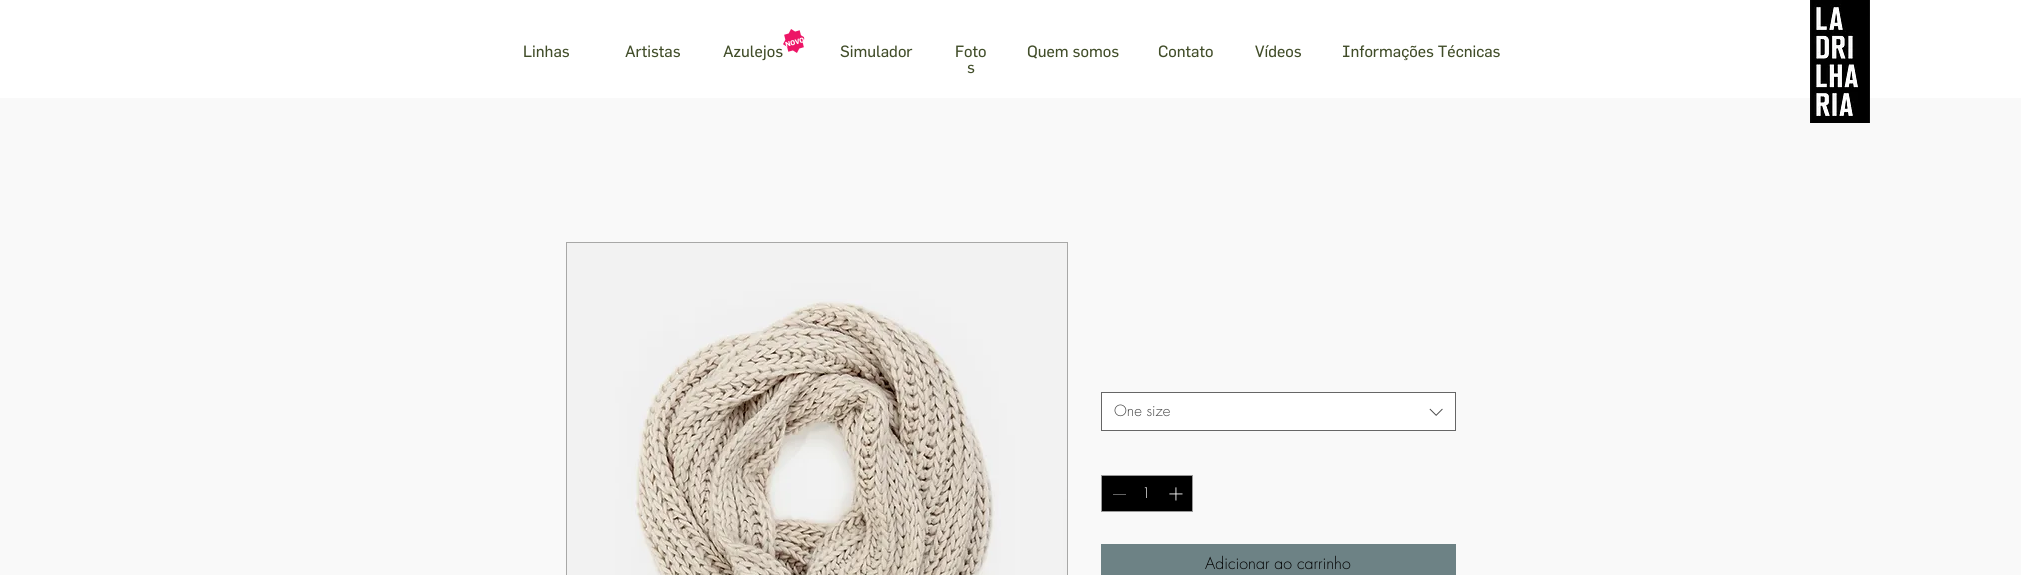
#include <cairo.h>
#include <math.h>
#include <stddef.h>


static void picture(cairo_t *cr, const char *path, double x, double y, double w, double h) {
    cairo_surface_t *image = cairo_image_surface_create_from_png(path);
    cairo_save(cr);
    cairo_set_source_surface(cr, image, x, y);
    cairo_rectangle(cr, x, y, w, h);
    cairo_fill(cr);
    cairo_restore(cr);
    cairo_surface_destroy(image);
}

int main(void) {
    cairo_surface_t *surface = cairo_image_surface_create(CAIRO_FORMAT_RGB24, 2021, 575);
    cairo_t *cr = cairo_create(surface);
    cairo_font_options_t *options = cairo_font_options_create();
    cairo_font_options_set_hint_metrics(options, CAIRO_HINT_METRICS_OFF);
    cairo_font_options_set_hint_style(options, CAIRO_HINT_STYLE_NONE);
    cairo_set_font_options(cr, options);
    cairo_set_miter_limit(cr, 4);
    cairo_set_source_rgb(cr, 0.976, 0.976, 0.976);
    cairo_paint(cr);
    cairo_set_source_rgb(cr, 1, 1, 1);
    cairo_rectangle(cr, 0, 0, 2021, 98);
    cairo_fill(cr);
    picture(cr, "img1.png", 783, 29, 22, 24);
    cairo_select_font_face(cr, "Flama", CAIRO_FONT_SLANT_NORMAL, CAIRO_FONT_WEIGHT_BOLD);
    cairo_set_font_size(cr, 7);
    cairo_save(cr);
    cairo_translate(cr, 786, 47);
    cairo_rotate(cr, -15 * M_PI / 180);
    cairo_move_to(cr, 0, 0);
    cairo_show_text(cr, "NOVO!");
    cairo_restore(cr);
    cairo_select_font_face(cr, "Flama SemiBold", CAIRO_FONT_SLANT_NORMAL, CAIRO_FONT_WEIGHT_NORMAL);
    cairo_set_font_size(cr, 16);
    cairo_set_source_rgb(cr, 0.255, 0.302, 0.161);
    cairo_move_to(cr, 523, 57);
    cairo_show_text(cr, "Linhas");
    cairo_move_to(cr, 625, 57);
    cairo_show_text(cr, "Artistas");
    cairo_move_to(cr, 723, 57);
    cairo_show_text(cr, "Azulejos");
    cairo_move_to(cr, 840, 57);
    cairo_show_text(cr, "Simulador");
    cairo_move_to(cr, 955, 57);
    cairo_show_text(cr, "Foto");
    cairo_move_to(cr, 967, 73);
    cairo_show_text(cr, "s");
    cairo_move_to(cr, 1027, 57);
    cairo_show_text(cr, "Quem somos");
    cairo_move_to(cr, 1158, 57);
    cairo_show_text(cr, "Contato");
    cairo_move_to(cr, 1255, 57);
    cairo_show_text(cr, "Vídeos");
    cairo_move_to(cr, 1342, 57);
    cairo_show_text(cr, "Informações Técnicas");
    picture(cr, "img2.png", 1810, 0, 60, 123);
    cairo_rectangle(cr, 566.5, 242.5, 501, 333);
    cairo_set_source_rgb(cr, 0.659, 0.659, 0.655);
    cairo_set_line_width(cr, 1);
    cairo_stroke(cr);
    picture(cr, "img3.png", 567, 243, 500, 332);
    cairo_set_source_rgb(cr, 1, 1, 1);
    cairo_rectangle(cr, 1101.5, 392.5, 354, 38);
    cairo_fill_preserve(cr);
    cairo_set_source_rgb(cr, 0.4, 0.4, 0.4);
    cairo_stroke(cr);
    cairo_select_font_face(cr, "futura Light", CAIRO_FONT_SLANT_NORMAL, CAIRO_FONT_WEIGHT_NORMAL);
    cairo_set_font_size(cr, 15);
    cairo_set_source_rgb(cr, 0.267, 0.267, 0.267);
    cairo_move_to(cr, 1114, 416);
    cairo_show_text(cr, "One size");
    picture(cr, "img4.png", 1429, 408, 14, 8);
    cairo_set_source_rgb(cr, 0, 0, 0);
    cairo_rectangle(cr, 1101.5, 475.5, 91, 36);
    cairo_fill_preserve(cr);
    cairo_set_source_rgb(cr, 0.6, 0.6, 0.6);
    cairo_stroke(cr);
    cairo_set_source_rgb(cr, 0.392, 0.392, 0.392);
    cairo_rectangle(cr, 1113, 494, 13, 1);
    cairo_fill(cr);
    cairo_set_font_size(cr, 14);
    cairo_set_source_rgb(cr, 1, 1, 1);
    cairo_move_to(cr, 1142, 498);
    cairo_show_text(cr, "1");
    picture(cr, "img5.png", 1169, 487, 14, 14);
    cairo_set_source_rgb(cr, 0.427, 0.51, 0.522);
    cairo_rectangle(cr, 1101, 544, 355, 31);
    cairo_fill(cr);
    cairo_set_font_size(cr, 16);
    cairo_set_source_rgb(cr, 0, 0, 0);
    cairo_move_to(cr, 1205, 569);
    cairo_show_text(cr, "Adicionar ao carrinho");
    cairo_surface_write_to_png(surface, "page.png");
    cairo_font_options_destroy(options);
    cairo_destroy(cr);
    cairo_surface_destroy(surface);
    return 0;
}
